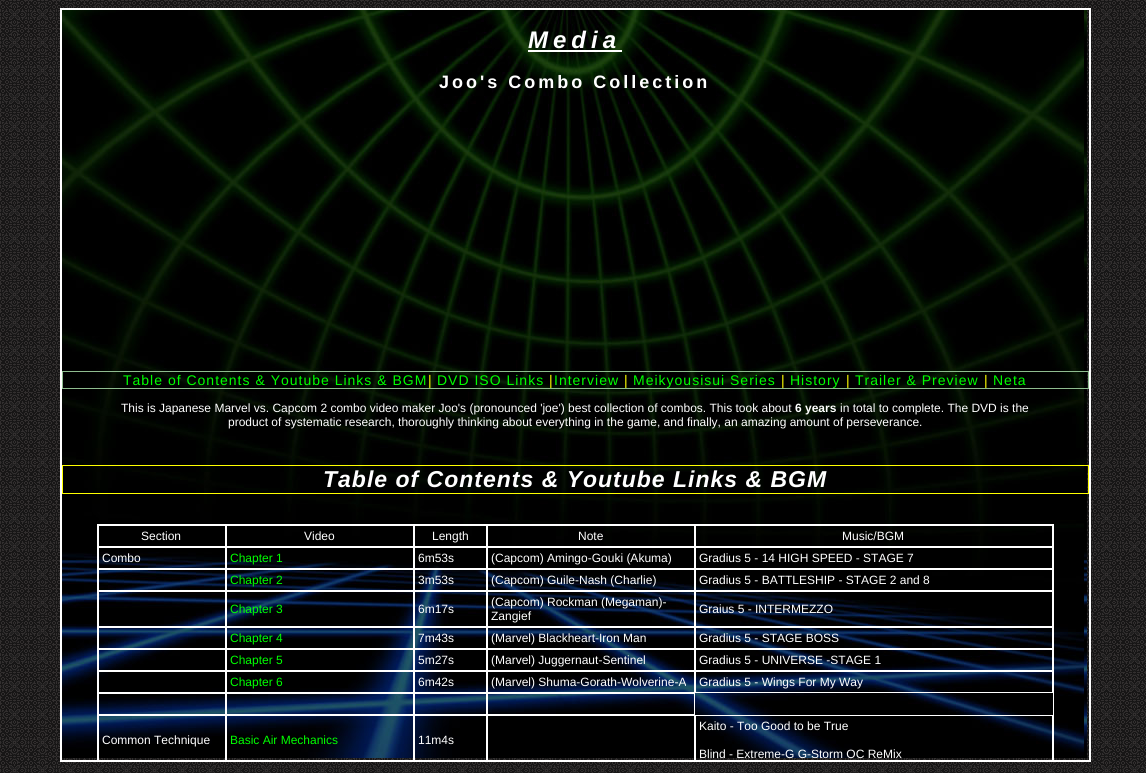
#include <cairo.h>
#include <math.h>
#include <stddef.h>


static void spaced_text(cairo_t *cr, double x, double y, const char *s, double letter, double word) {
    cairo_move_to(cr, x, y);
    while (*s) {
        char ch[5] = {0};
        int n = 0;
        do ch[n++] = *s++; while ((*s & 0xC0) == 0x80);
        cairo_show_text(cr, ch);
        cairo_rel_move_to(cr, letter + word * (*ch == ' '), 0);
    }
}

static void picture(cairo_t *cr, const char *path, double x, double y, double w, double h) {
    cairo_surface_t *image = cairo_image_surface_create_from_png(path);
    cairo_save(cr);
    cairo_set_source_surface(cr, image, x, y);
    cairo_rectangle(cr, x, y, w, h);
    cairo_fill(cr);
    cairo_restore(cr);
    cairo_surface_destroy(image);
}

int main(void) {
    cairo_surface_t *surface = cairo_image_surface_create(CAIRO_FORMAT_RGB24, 1146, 773);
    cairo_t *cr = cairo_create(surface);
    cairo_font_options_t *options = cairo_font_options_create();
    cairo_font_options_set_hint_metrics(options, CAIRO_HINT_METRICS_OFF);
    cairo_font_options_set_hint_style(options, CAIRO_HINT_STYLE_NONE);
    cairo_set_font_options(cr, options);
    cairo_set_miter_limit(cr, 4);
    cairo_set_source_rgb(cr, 1, 1, 1);
    cairo_paint(cr);
    picture(cr, "img1.png", 0, 0, 1146, 773);
    picture(cr, "img2.png", 62, 10, 1025, 748);
    cairo_rectangle(cr, 61, 9, 1029, 752);
    cairo_set_source_rgb(cr, 1, 1, 1);
    cairo_stroke(cr);
    cairo_select_font_face(cr, "Liberation Sans", CAIRO_FONT_SLANT_ITALIC, CAIRO_FONT_WEIGHT_BOLD);
    cairo_set_font_size(cr, 24);
    spaced_text(cr, 528, 48, "Media", 5, 0);
    cairo_rectangle(cr, 528, 50, 94, 2);
    cairo_fill(cr);
    cairo_select_font_face(cr, "Liberation Sans", CAIRO_FONT_SLANT_NORMAL, CAIRO_FONT_WEIGHT_BOLD);
    cairo_set_font_size(cr, 18);
    spaced_text(cr, 439, 88, "Joo's Combo Collection", 3, 0);
    cairo_rectangle(cr, 62.5, 371.5, 1026, 17);
    cairo_set_source_rgb(cr, 0.561, 0.737, 0.561);
    cairo_set_line_width(cr, 1);
    cairo_stroke(cr);
    cairo_select_font_face(cr, "Liberation Sans", CAIRO_FONT_SLANT_NORMAL, CAIRO_FONT_WEIGHT_NORMAL);
    cairo_set_font_size(cr, 14);
    cairo_set_source_rgb(cr, 0, 1, 0);
    spaced_text(cr, 123, 385, "Table of Contents & Youtube Links & BGM", 1, 0);
    cairo_set_source_rgb(cr, 1, 1, 0);
    spaced_text(cr, 428, 385, "|", 1, 0);
    cairo_set_source_rgb(cr, 0, 1, 0);
    spaced_text(cr, 437, 385, "DVD ISO Links", 1, 0);
    cairo_set_source_rgb(cr, 1, 1, 0);
    spaced_text(cr, 549, 385, "|", 1, 0);
    cairo_set_source_rgb(cr, 0, 1, 0);
    spaced_text(cr, 554, 385, "Interview", 1, 0);
    cairo_set_source_rgb(cr, 1, 1, 0);
    spaced_text(cr, 624, 385, "|", 1, 0);
    cairo_set_source_rgb(cr, 0, 1, 0);
    spaced_text(cr, 633, 385, "Meikyousisui Series", 1, 0);
    cairo_set_source_rgb(cr, 1, 1, 0);
    spaced_text(cr, 781, 385, "|", 1, 0);
    cairo_set_source_rgb(cr, 0, 1, 0);
    spaced_text(cr, 790, 385, "History", 1, 0);
    cairo_set_source_rgb(cr, 1, 1, 0);
    spaced_text(cr, 846, 385, "|", 1, 0);
    cairo_set_source_rgb(cr, 0, 1, 0);
    spaced_text(cr, 855, 385, "Trailer & Preview", 1, 0);
    cairo_set_source_rgb(cr, 1, 1, 0);
    spaced_text(cr, 984, 385, "|", 1, 0);
    cairo_set_source_rgb(cr, 0, 1, 0);
    spaced_text(cr, 993, 385, "Neta", 1, 0);
    cairo_set_font_size(cr, 12);
    cairo_set_source_rgb(cr, 1, 1, 1);
    cairo_move_to(cr, 121, 412);
    cairo_show_text(cr, "This is Japanese Marvel vs. Capcom 2 combo video maker Joo's (pronounced 'joe') best collection of combos. This took about");
    cairo_select_font_face(cr, "Liberation Sans", CAIRO_FONT_SLANT_NORMAL, CAIRO_FONT_WEIGHT_BOLD);
    cairo_move_to(cr, 795, 412);
    cairo_show_text(cr, "6 years");
    cairo_select_font_face(cr, "Liberation Sans", CAIRO_FONT_SLANT_NORMAL, CAIRO_FONT_WEIGHT_NORMAL);
    cairo_move_to(cr, 840, 412);
    cairo_show_text(cr, "in total to complete. The DVD is the");
    cairo_move_to(cr, 228, 426);
    cairo_show_text(cr, "product of systematic research, thoroughly thinking about everything in the game, and finally, an amazing amount of perseverance.");
    cairo_rectangle(cr, 62.5, 465.5, 1026, 28);
    cairo_set_source_rgb(cr, 1, 1, 0);
    cairo_stroke(cr);
    cairo_select_font_face(cr, "Liberation Sans", CAIRO_FONT_SLANT_ITALIC, CAIRO_FONT_WEIGHT_BOLD);
    cairo_set_font_size(cr, 23);
    cairo_set_source_rgb(cr, 1, 1, 1);
    spaced_text(cr, 323, 487, "Table of Contents & Youtube Links & BGM", 1, 0);
    cairo_save(cr);
    cairo_rectangle(cr, 62, 10, 1027, 750);
    cairo_clip(cr);
    cairo_rectangle(cr, 97.5, 524.5, 956, 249);
    cairo_stroke(cr);
    cairo_restore(cr);
    cairo_rectangle(cr, 98.5, 525.5, 127, 21);
    cairo_stroke(cr);
    cairo_select_font_face(cr, "Liberation Sans", CAIRO_FONT_SLANT_NORMAL, CAIRO_FONT_WEIGHT_NORMAL);
    cairo_set_font_size(cr, 12);
    cairo_move_to(cr, 141, 540);
    cairo_show_text(cr, "Section");
    cairo_rectangle(cr, 226.5, 525.5, 187, 21);
    cairo_stroke(cr);
    cairo_move_to(cr, 304, 540);
    cairo_show_text(cr, "Video");
    cairo_rectangle(cr, 414.5, 525.5, 72, 21);
    cairo_stroke(cr);
    cairo_move_to(cr, 432, 540);
    cairo_show_text(cr, "Length");
    cairo_rectangle(cr, 487.5, 525.5, 207, 21);
    cairo_stroke(cr);
    cairo_move_to(cr, 578, 540);
    cairo_show_text(cr, "Note");
    cairo_rectangle(cr, 695.5, 525.5, 357, 21);
    cairo_stroke(cr);
    cairo_move_to(cr, 842, 540);
    cairo_show_text(cr, "Music/BGM");
    cairo_rectangle(cr, 98.5, 547.5, 127, 21);
    cairo_stroke(cr);
    cairo_move_to(cr, 102, 562);
    cairo_show_text(cr, "Combo");
    cairo_rectangle(cr, 226.5, 547.5, 187, 21);
    cairo_stroke(cr);
    cairo_set_source_rgb(cr, 0, 1, 0);
    cairo_move_to(cr, 230, 562);
    cairo_show_text(cr, "Chapter 1");
    cairo_rectangle(cr, 414.5, 547.5, 72, 21);
    cairo_set_source_rgb(cr, 1, 1, 1);
    cairo_stroke(cr);
    cairo_move_to(cr, 418, 562);
    cairo_show_text(cr, "6m53s");
    cairo_rectangle(cr, 487.5, 547.5, 207, 21);
    cairo_stroke(cr);
    cairo_move_to(cr, 491, 562);
    cairo_show_text(cr, "(Capcom) Amingo-Gouki (Akuma)");
    cairo_rectangle(cr, 695.5, 547.5, 357, 21);
    cairo_stroke(cr);
    cairo_move_to(cr, 699, 562);
    cairo_show_text(cr, "Gradius 5 - 14 HIGH SPEED - STAGE 7");
    cairo_rectangle(cr, 98.5, 569.5, 127, 21);
    cairo_stroke(cr);
    cairo_rectangle(cr, 226.5, 569.5, 187, 21);
    cairo_stroke(cr);
    cairo_set_source_rgb(cr, 0, 1, 0);
    cairo_move_to(cr, 230, 584);
    cairo_show_text(cr, "Chapter 2");
    cairo_rectangle(cr, 414.5, 569.5, 72, 21);
    cairo_set_source_rgb(cr, 1, 1, 1);
    cairo_stroke(cr);
    cairo_move_to(cr, 418, 584);
    cairo_show_text(cr, "3m53s");
    cairo_rectangle(cr, 487.5, 569.5, 207, 21);
    cairo_stroke(cr);
    cairo_move_to(cr, 491, 584);
    cairo_show_text(cr, "(Capcom) Guile-Nash (Charlie)");
    cairo_rectangle(cr, 695.5, 569.5, 357, 21);
    cairo_stroke(cr);
    cairo_move_to(cr, 699, 584);
    cairo_show_text(cr, "Gradius 5 - BATTLESHIP - STAGE 2 and 8");
    cairo_rectangle(cr, 98.5, 591.5, 127, 35);
    cairo_stroke(cr);
    cairo_rectangle(cr, 226.5, 591.5, 187, 35);
    cairo_stroke(cr);
    cairo_set_source_rgb(cr, 0, 1, 0);
    cairo_move_to(cr, 230, 613);
    cairo_show_text(cr, "Chapter 3");
    cairo_rectangle(cr, 414.5, 591.5, 72, 35);
    cairo_set_source_rgb(cr, 1, 1, 1);
    cairo_stroke(cr);
    cairo_move_to(cr, 418, 613);
    cairo_show_text(cr, "6m17s");
    cairo_rectangle(cr, 487.5, 591.5, 207, 35);
    cairo_stroke(cr);
    cairo_move_to(cr, 491, 606);
    cairo_show_text(cr, "(Capcom) Rockman (Megaman)-");
    cairo_move_to(cr, 491, 620);
    cairo_show_text(cr, "Zangief");
    cairo_rectangle(cr, 695.5, 591.5, 357, 35);
    cairo_stroke(cr);
    cairo_move_to(cr, 699, 613);
    cairo_show_text(cr, "Graius 5 - INTERMEZZO");
    cairo_rectangle(cr, 98.5, 627.5, 127, 21);
    cairo_stroke(cr);
    cairo_rectangle(cr, 226.5, 627.5, 187, 21);
    cairo_stroke(cr);
    cairo_set_source_rgb(cr, 0, 1, 0);
    cairo_move_to(cr, 230, 642);
    cairo_show_text(cr, "Chapter 4");
    cairo_rectangle(cr, 414.5, 627.5, 72, 21);
    cairo_set_source_rgb(cr, 1, 1, 1);
    cairo_stroke(cr);
    cairo_move_to(cr, 418, 642);
    cairo_show_text(cr, "7m43s");
    cairo_rectangle(cr, 487.5, 627.5, 207, 21);
    cairo_stroke(cr);
    cairo_move_to(cr, 491, 642);
    cairo_show_text(cr, "(Marvel) Blackheart-Iron Man");
    cairo_rectangle(cr, 695.5, 627.5, 357, 21);
    cairo_stroke(cr);
    cairo_move_to(cr, 699, 642);
    cairo_show_text(cr, "Gradius 5 - STAGE BOSS");
    cairo_rectangle(cr, 98.5, 649.5, 127, 21);
    cairo_stroke(cr);
    cairo_rectangle(cr, 226.5, 649.5, 187, 21);
    cairo_stroke(cr);
    cairo_set_source_rgb(cr, 0, 1, 0);
    cairo_move_to(cr, 230, 664);
    cairo_show_text(cr, "Chapter 5");
    cairo_rectangle(cr, 414.5, 649.5, 72, 21);
    cairo_set_source_rgb(cr, 1, 1, 1);
    cairo_stroke(cr);
    cairo_move_to(cr, 418, 664);
    cairo_show_text(cr, "5m27s");
    cairo_rectangle(cr, 487.5, 649.5, 207, 21);
    cairo_stroke(cr);
    cairo_move_to(cr, 491, 664);
    cairo_show_text(cr, "(Marvel) Juggernaut-Sentinel");
    cairo_rectangle(cr, 695.5, 649.5, 357, 21);
    cairo_stroke(cr);
    cairo_move_to(cr, 699, 664);
    cairo_show_text(cr, "Gradius 5 - UNIVERSE -STAGE 1");
    cairo_rectangle(cr, 98.5, 671.5, 127, 21);
    cairo_stroke(cr);
    cairo_rectangle(cr, 226.5, 671.5, 187, 21);
    cairo_stroke(cr);
    cairo_set_source_rgb(cr, 0, 1, 0);
    cairo_move_to(cr, 230, 686);
    cairo_show_text(cr, "Chapter 6");
    cairo_rectangle(cr, 414.5, 671.5, 72, 21);
    cairo_set_source_rgb(cr, 1, 1, 1);
    cairo_stroke(cr);
    cairo_move_to(cr, 418, 686);
    cairo_show_text(cr, "6m42s");
    cairo_rectangle(cr, 487.5, 671.5, 207, 21);
    cairo_stroke(cr);
    cairo_move_to(cr, 491, 686);
    cairo_show_text(cr, "(Marvel) Shuma-Gorath-Wolverine-A");
    cairo_rectangle(cr, 695.5, 671.5, 357, 21);
    cairo_stroke(cr);
    cairo_move_to(cr, 699, 686);
    cairo_show_text(cr, "Gradius 5 - Wings For My Way");
    cairo_rectangle(cr, 98.5, 693.5, 127, 21);
    cairo_stroke(cr);
    cairo_rectangle(cr, 226.5, 693.5, 187, 21);
    cairo_stroke(cr);
    cairo_rectangle(cr, 414.5, 693.5, 72, 21);
    cairo_stroke(cr);
    cairo_rectangle(cr, 487.5, 693.5, 207, 21);
    cairo_stroke(cr);
    cairo_save(cr);
    cairo_rectangle(cr, 62, 10, 1027, 750);
    cairo_clip(cr);
    cairo_rectangle(cr, 98.5, 715.5, 127, 49);
    cairo_stroke(cr);
    cairo_restore(cr);
    cairo_move_to(cr, 102, 744);
    cairo_show_text(cr, "Common Technique");
    cairo_save(cr);
    cairo_rectangle(cr, 62, 10, 1027, 750);
    cairo_clip(cr);
    cairo_rectangle(cr, 226.5, 715.5, 187, 49);
    cairo_stroke(cr);
    cairo_restore(cr);
    cairo_set_source_rgb(cr, 0, 1, 0);
    cairo_move_to(cr, 230, 744);
    cairo_show_text(cr, "Basic Air Mechanics");
    cairo_save(cr);
    cairo_rectangle(cr, 62, 10, 1027, 750);
    cairo_clip(cr);
    cairo_rectangle(cr, 414.5, 715.5, 72, 49);
    cairo_set_source_rgb(cr, 1, 1, 1);
    cairo_stroke(cr);
    cairo_restore(cr);
    cairo_set_source_rgb(cr, 1, 1, 1);
    cairo_move_to(cr, 418, 744);
    cairo_show_text(cr, "11m4s");
    cairo_save(cr);
    cairo_rectangle(cr, 62, 10, 1027, 750);
    cairo_clip(cr);
    cairo_rectangle(cr, 487.5, 715.5, 207, 49);
    cairo_stroke(cr);
    cairo_rectangle(cr, 695.5, 715.5, 357, 49);
    cairo_stroke(cr);
    cairo_restore(cr);
    cairo_move_to(cr, 699, 730);
    cairo_show_text(cr, "Kaito - Too Good to be True");
    cairo_move_to(cr, 699, 758);
    cairo_show_text(cr, "Blind - Extreme-G G-Storm OC ReMix");
    cairo_surface_write_to_png(surface, "page.png");
    cairo_font_options_destroy(options);
    cairo_destroy(cr);
    cairo_surface_destroy(surface);
    return 0;
}
